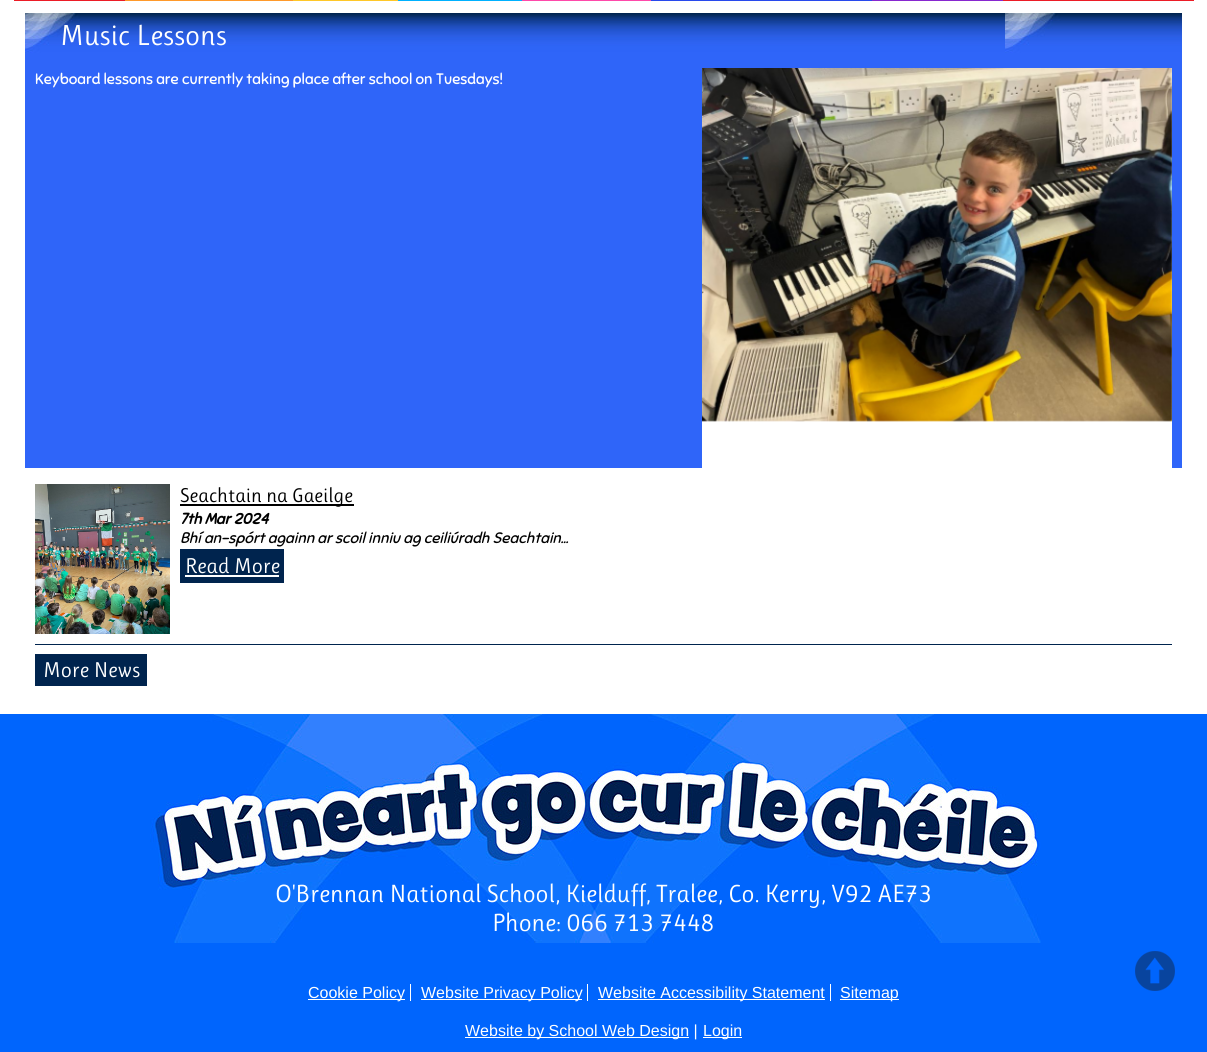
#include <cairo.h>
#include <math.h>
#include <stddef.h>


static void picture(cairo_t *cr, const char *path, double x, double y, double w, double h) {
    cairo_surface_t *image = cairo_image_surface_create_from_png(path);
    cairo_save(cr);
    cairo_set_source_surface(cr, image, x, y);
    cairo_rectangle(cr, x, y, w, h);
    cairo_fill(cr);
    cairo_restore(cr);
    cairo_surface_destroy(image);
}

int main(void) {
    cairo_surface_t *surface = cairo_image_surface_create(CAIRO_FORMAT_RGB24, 1207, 1052);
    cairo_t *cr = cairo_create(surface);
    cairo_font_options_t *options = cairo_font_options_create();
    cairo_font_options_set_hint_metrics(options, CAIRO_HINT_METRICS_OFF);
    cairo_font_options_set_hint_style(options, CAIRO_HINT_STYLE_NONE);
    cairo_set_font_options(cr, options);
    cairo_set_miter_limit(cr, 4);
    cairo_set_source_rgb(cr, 1, 1, 1);
    cairo_paint(cr);
    cairo_set_source_rgb(cr, 0.922, 0.11, 0.149);
    cairo_rectangle(cr, 14, 0, 1180, 1);
    cairo_fill(cr);
    cairo_set_source_rgb(cr, 1, 0.6, 0.165);
    cairo_rectangle(cr, 125, 0, 168, 1);
    cairo_fill(cr);
    cairo_set_source_rgb(cr, 1, 0.78, 0.157);
    cairo_rectangle(cr, 293, 0, 105, 1);
    cairo_fill(cr);
    cairo_set_source_rgb(cr, 0, 0.694, 1);
    cairo_rectangle(cr, 398, 0, 124, 1);
    cairo_fill(cr);
    cairo_set_source_rgb(cr, 0.996, 0.286, 0.667);
    cairo_rectangle(cr, 522, 0, 129, 1);
    cairo_fill(cr);
    cairo_set_source_rgb(cr, 0.157, 0.286, 0.925);
    cairo_rectangle(cr, 651, 0, 221, 1);
    cairo_fill(cr);
    cairo_set_source_rgb(cr, 0.529, 0.153, 0.812);
    cairo_rectangle(cr, 872, 0, 131, 1);
    cairo_fill(cr);
    cairo_set_source_rgb(cr, 0.184, 0.396, 0.976);
    cairo_rectangle(cr, 25, 53, 1157, 415);
    cairo_fill(cr);
    picture(cr, "img1.png", 25, 13, 1157, 40);
    cairo_select_font_face(cr, "Ruluko", CAIRO_FONT_SLANT_NORMAL, CAIRO_FONT_WEIGHT_NORMAL);
    cairo_set_font_size(cr, 29);
    cairo_set_source_rgb(cr, 1, 1, 1);
    cairo_move_to(cr, 60, 45);
    cairo_show_text(cr, "Music Lessons");
    cairo_select_font_face(cr, "Sniglet", CAIRO_FONT_SLANT_NORMAL, CAIRO_FONT_WEIGHT_NORMAL);
    cairo_set_font_size(cr, 15.2);
    cairo_move_to(cr, 35, 84);
    cairo_show_text(cr, "Keyboard lessons are currently taking place after school on Tuesdays!");
    cairo_rectangle(cr, 702, 68, 470, 400);
    cairo_fill(cr);
    picture(cr, "img2.png", 702, 68, 470, 354);
    cairo_set_source_rgb(cr, 0, 0.141, 0.306);
    cairo_rectangle(cr, 35, 644, 1137, 1);
    cairo_fill(cr);
    picture(cr, "img3.png", 35, 484, 135, 150);
    cairo_set_source_rgb(cr, 0, 0, 0);
    cairo_rectangle(cr, 180, 504, 174, 2);
    cairo_fill(cr);
    cairo_select_font_face(cr, "Ruluko", CAIRO_FONT_SLANT_NORMAL, CAIRO_FONT_WEIGHT_NORMAL);
    cairo_set_font_size(cr, 20);
    cairo_move_to(cr, 180, 502);
    cairo_show_text(cr, "Seachtain na Gaeilge");
    cairo_select_font_face(cr, "Sniglet", CAIRO_FONT_SLANT_ITALIC, CAIRO_FONT_WEIGHT_BOLD);
    cairo_set_font_size(cr, 15.2);
    cairo_move_to(cr, 180, 524);
    cairo_show_text(cr, "7th Mar 2024");
    cairo_select_font_face(cr, "Sniglet", CAIRO_FONT_SLANT_ITALIC, CAIRO_FONT_WEIGHT_NORMAL);
    cairo_move_to(cr, 180, 543);
    cairo_show_text(cr, "Bhí an-spórt againn ar scoil inniu ag ceiliúradh Seachtain...");
    cairo_set_source_rgb(cr, 0, 0.141, 0.306);
    cairo_rectangle(cr, 180, 549, 104, 34);
    cairo_fill(cr);
    cairo_select_font_face(cr, "Ruluko", CAIRO_FONT_SLANT_NORMAL, CAIRO_FONT_WEIGHT_NORMAL);
    cairo_set_font_size(cr, 21.5);
    cairo_set_source_rgb(cr, 1, 1, 1);
    cairo_move_to(cr, 185, 573);
    cairo_show_text(cr, "Read More");
    cairo_rectangle(cr, 185, 575, 94, 2);
    cairo_fill(cr);
    cairo_set_source_rgb(cr, 0, 0.141, 0.306);
    cairo_rectangle(cr, 35, 654, 112, 32);
    cairo_fill(cr);
    cairo_set_source_rgb(cr, 1, 1, 1);
    cairo_move_to(cr, 43, 677);
    cairo_show_text(cr, "More News");
    cairo_set_source_rgb(cr, 0, 0.396, 0.992);
    cairo_rectangle(cr, 0, 714, 1207, 338);
    cairo_fill(cr);
    picture(cr, "img4.png", 150, 714, 891, 229);
    cairo_set_font_size(cr, 24.95);
    cairo_set_source_rgb(cr, 1, 1, 1);
    cairo_move_to(cr, 275, 902);
    cairo_show_text(cr, "O'Brennan National School, Kielduff, Tralee, Co. Kerry, V92 AE73");
    cairo_move_to(cr, 492, 931);
    cairo_show_text(cr, "Phone: 066 713 7448");
    picture(cr, "img5.png", 1135, 951, 40, 40);
    cairo_rectangle(cr, 308, 999, 97, 1);
    cairo_fill(cr);
    cairo_select_font_face(cr, "Liberation Sans", CAIRO_FONT_SLANT_NORMAL, CAIRO_FONT_WEIGHT_NORMAL);
    cairo_set_font_size(cr, 16);
    cairo_move_to(cr, 308, 998);
    cairo_show_text(cr, "Cookie Policy");
    cairo_rectangle(cr, 410, 984, 1, 17);
    cairo_fill(cr);
    cairo_rectangle(cr, 421, 999, 161, 1);
    cairo_fill(cr);
    cairo_move_to(cr, 421, 998);
    cairo_show_text(cr, "Website Privacy Policy");
    cairo_rectangle(cr, 587, 984, 1, 17);
    cairo_fill(cr);
    cairo_rectangle(cr, 598, 999, 227, 1);
    cairo_fill(cr);
    cairo_move_to(cr, 598, 998);
    cairo_show_text(cr, "Website Accessibility Statement");
    cairo_rectangle(cr, 830, 984, 1, 17);
    cairo_fill(cr);
    cairo_rectangle(cr, 840, 999, 59, 1);
    cairo_fill(cr);
    cairo_move_to(cr, 840, 998);
    cairo_show_text(cr, "Sitemap");
    cairo_rectangle(cr, 465, 1037, 224, 1);
    cairo_fill(cr);
    cairo_move_to(cr, 465, 1036);
    cairo_show_text(cr, "Website by School Web Design |");
    cairo_rectangle(cr, 703, 1037, 39, 1);
    cairo_fill(cr);
    cairo_move_to(cr, 703, 1036);
    cairo_show_text(cr, "Login");
    cairo_surface_write_to_png(surface, "page.png");
    cairo_font_options_destroy(options);
    cairo_destroy(cr);
    cairo_surface_destroy(surface);
    return 0;
}
